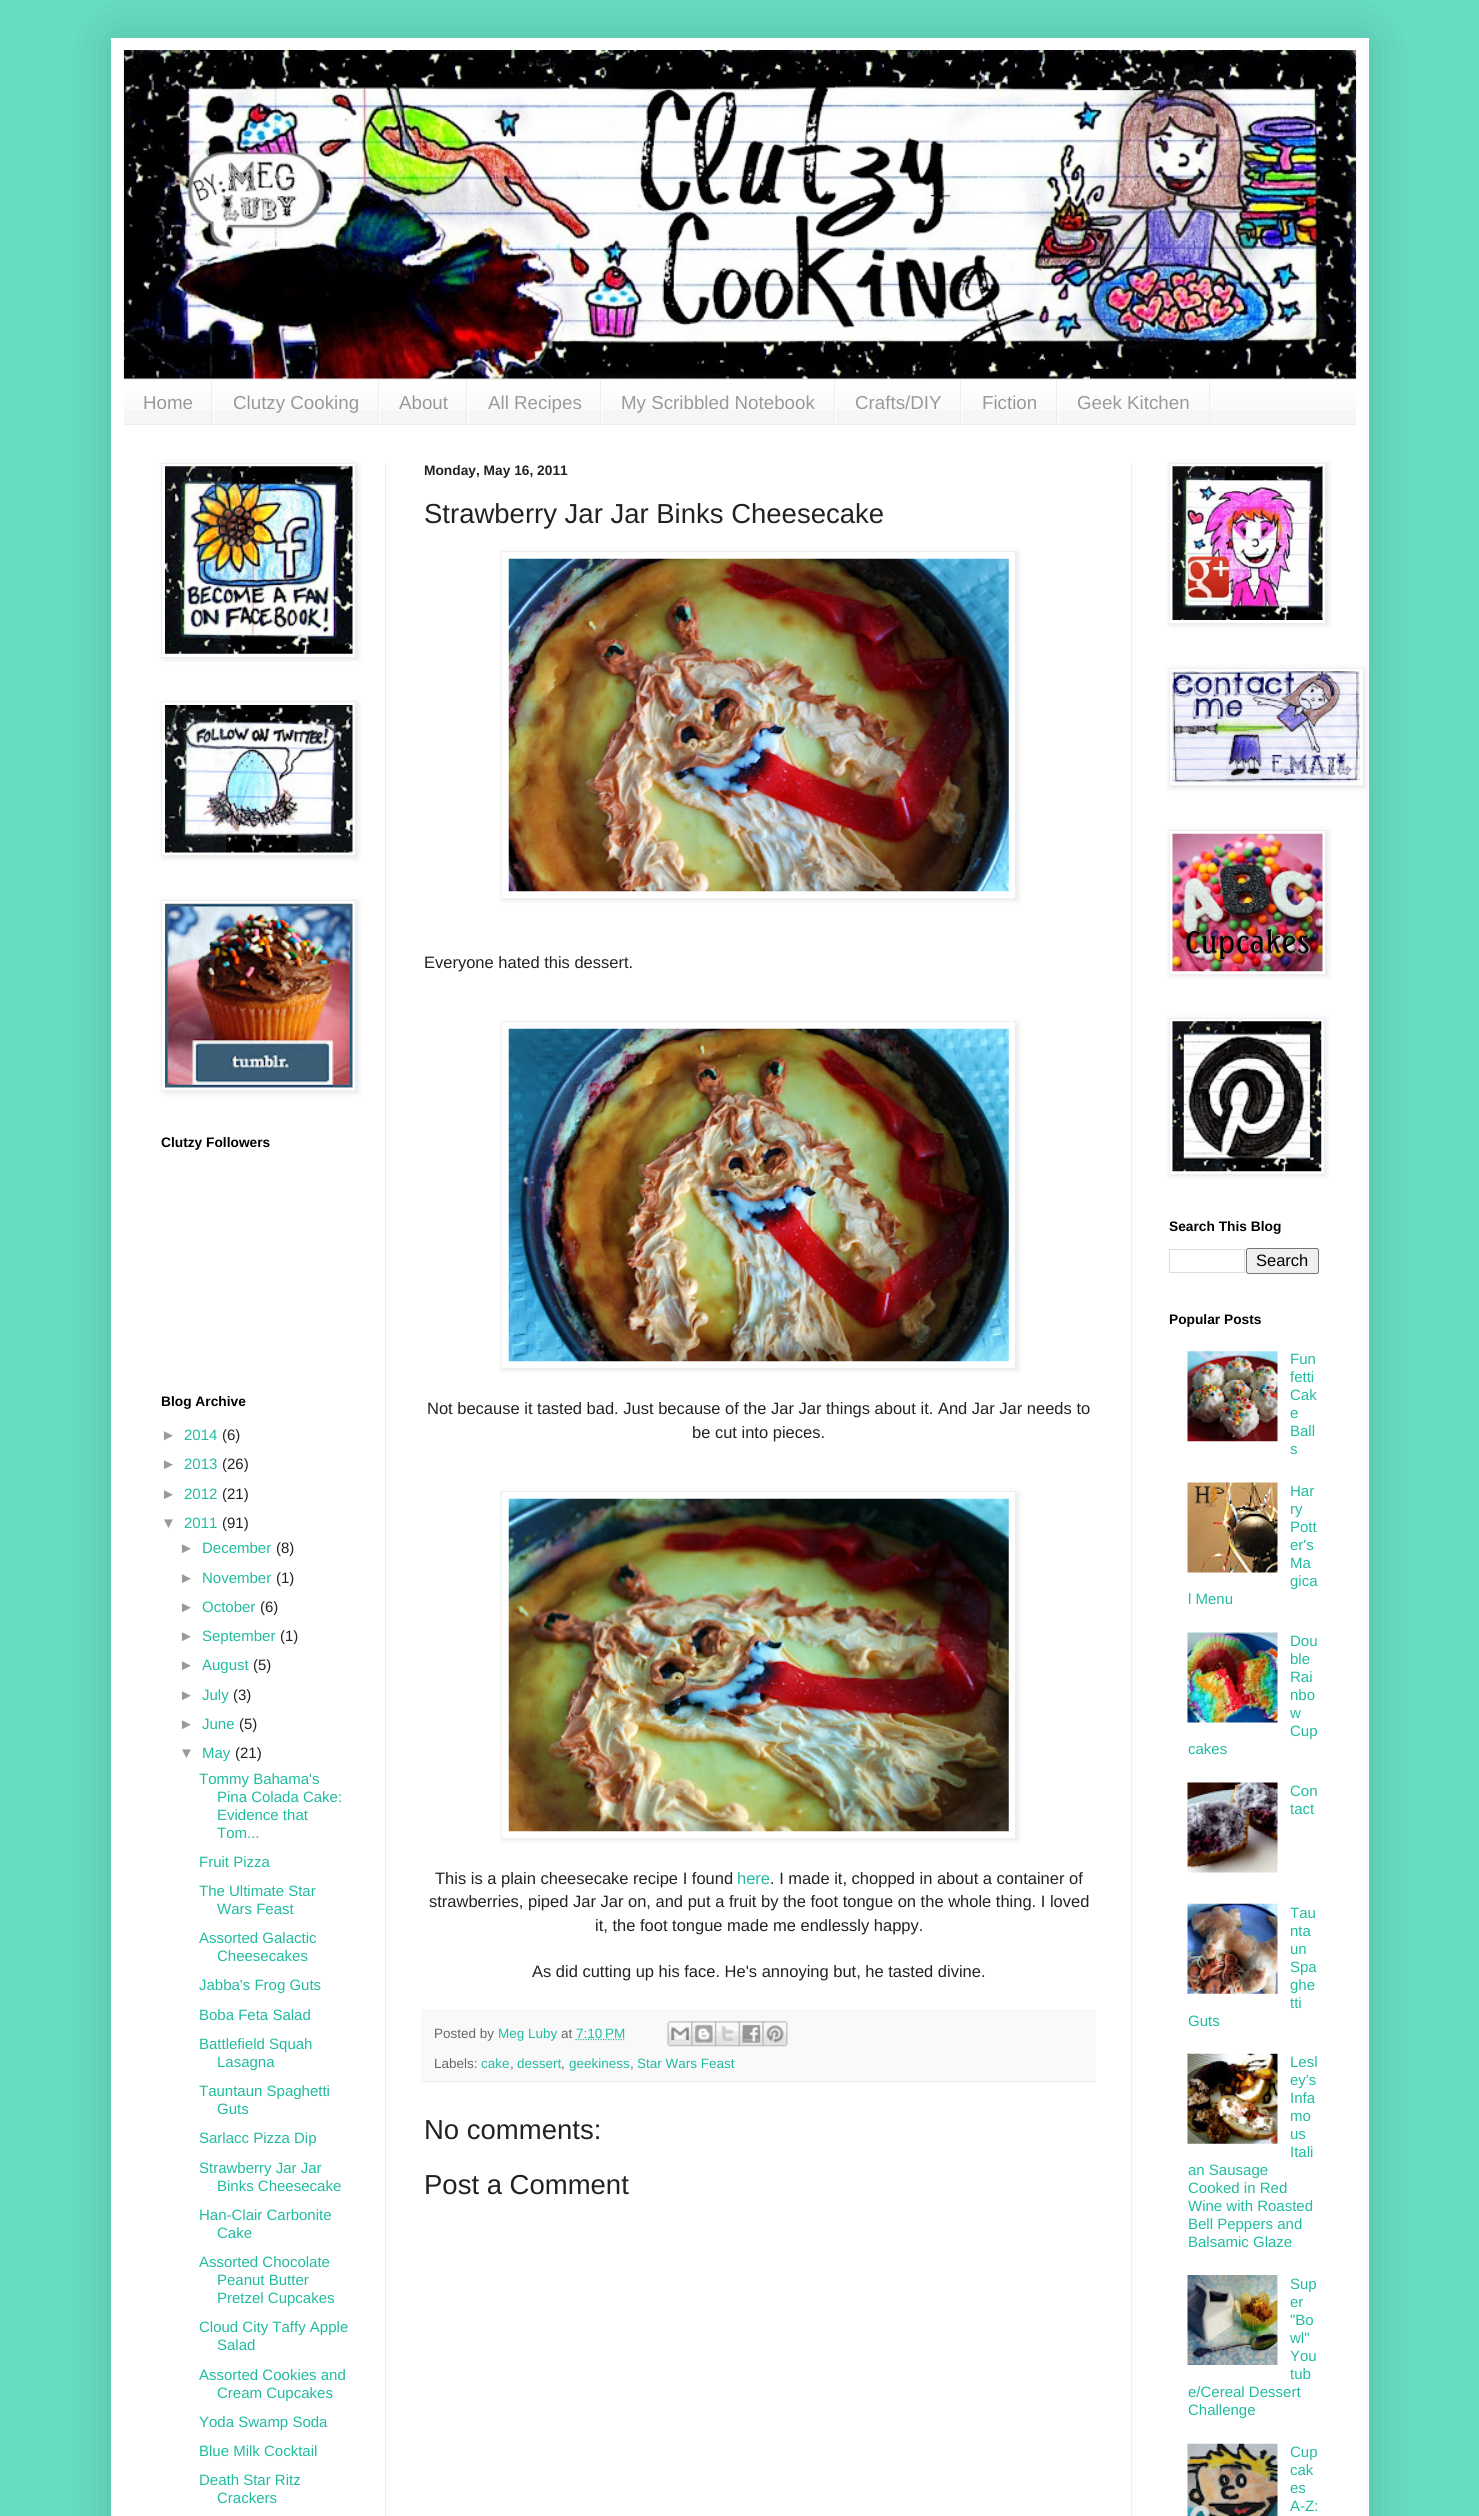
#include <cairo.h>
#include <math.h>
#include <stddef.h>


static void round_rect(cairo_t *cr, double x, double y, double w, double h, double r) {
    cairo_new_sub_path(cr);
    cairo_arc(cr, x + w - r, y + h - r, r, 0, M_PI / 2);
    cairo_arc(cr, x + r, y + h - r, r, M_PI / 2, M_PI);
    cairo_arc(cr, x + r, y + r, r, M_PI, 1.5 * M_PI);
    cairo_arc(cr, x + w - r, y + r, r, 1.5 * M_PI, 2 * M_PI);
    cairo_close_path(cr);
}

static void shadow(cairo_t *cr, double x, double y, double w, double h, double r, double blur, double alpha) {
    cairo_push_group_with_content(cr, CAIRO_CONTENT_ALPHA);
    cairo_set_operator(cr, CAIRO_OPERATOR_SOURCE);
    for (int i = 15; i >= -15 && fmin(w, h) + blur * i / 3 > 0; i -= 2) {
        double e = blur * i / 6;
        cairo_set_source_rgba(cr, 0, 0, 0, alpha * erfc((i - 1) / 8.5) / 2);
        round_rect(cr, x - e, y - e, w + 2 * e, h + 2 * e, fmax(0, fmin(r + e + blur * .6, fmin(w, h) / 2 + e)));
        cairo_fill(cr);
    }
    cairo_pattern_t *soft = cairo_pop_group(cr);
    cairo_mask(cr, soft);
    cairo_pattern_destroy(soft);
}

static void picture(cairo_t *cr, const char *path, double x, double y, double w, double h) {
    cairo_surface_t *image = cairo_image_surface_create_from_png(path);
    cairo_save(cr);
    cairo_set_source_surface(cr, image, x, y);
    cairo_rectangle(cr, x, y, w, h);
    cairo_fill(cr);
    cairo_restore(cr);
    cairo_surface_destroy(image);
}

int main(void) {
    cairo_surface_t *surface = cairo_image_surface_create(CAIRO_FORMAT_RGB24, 1479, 2516);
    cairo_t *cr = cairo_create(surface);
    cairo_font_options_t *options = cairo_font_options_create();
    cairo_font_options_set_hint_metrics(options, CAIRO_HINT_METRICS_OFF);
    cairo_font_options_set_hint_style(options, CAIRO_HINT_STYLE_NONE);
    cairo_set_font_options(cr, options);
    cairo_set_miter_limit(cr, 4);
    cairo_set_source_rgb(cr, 0.4, 0.867, 0.765);
    cairo_paint(cr);
    cairo_set_source_rgb(cr, 0, 0, 0);
    shadow(cr, 111, 38, 1258, 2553, 0, 25, 0.15);
    cairo_set_source_rgb(cr, 1, 1, 1);
    cairo_rectangle(cr, 111, 38, 1258, 2478);
    cairo_fill(cr);
    picture(cr, "img1.png", 123, 50, 1234, 329);
    cairo_set_source_rgb(cr, 0.961, 0.961, 0.961);
    cairo_rectangle(cr, 124, 380, 1232, 44);
    cairo_fill(cr);
    picture(cr, "img2.png", 124, 380, 1232, 30);
    cairo_set_source_rgb(cr, 0.933, 0.933, 0.933);
    cairo_rectangle(cr, 124, 379, 1232, 1);
    cairo_fill(cr);
    cairo_rectangle(cr, 124, 424, 1232, 1);
    cairo_fill(cr);
    cairo_rectangle(cr, 211, 380, 1, 44);
    cairo_fill(cr);
    cairo_select_font_face(cr, "Liberation Sans", CAIRO_FONT_SLANT_NORMAL, CAIRO_FONT_WEIGHT_NORMAL);
    cairo_set_font_size(cr, 18.75);
    cairo_set_source_rgb(cr, 0.6, 0.6, 0.6);
    cairo_move_to(cr, 143, 409);
    cairo_show_text(cr, "Home");
    cairo_set_source_rgb(cr, 0.933, 0.933, 0.933);
    cairo_rectangle(cr, 378, 380, 1, 44);
    cairo_fill(cr);
    cairo_set_source_rgb(cr, 1, 1, 1);
    cairo_rectangle(cr, 213, 394, 1, 30);
    cairo_fill(cr);
    cairo_set_source_rgb(cr, 0.6, 0.6, 0.6);
    cairo_move_to(cr, 233, 409);
    cairo_show_text(cr, "Clutzy Cooking");
    cairo_set_source_rgb(cr, 0.933, 0.933, 0.933);
    cairo_rectangle(cr, 466, 380, 1, 44);
    cairo_fill(cr);
    cairo_set_source_rgb(cr, 1, 1, 1);
    cairo_rectangle(cr, 379, 394, 1, 30);
    cairo_fill(cr);
    cairo_set_source_rgb(cr, 0.6, 0.6, 0.6);
    cairo_move_to(cr, 399, 409);
    cairo_show_text(cr, "About");
    cairo_set_source_rgb(cr, 0.933, 0.933, 0.933);
    cairo_rectangle(cr, 600, 380, 1, 44);
    cairo_fill(cr);
    cairo_set_source_rgb(cr, 1, 1, 1);
    cairo_rectangle(cr, 468, 394, 1, 30);
    cairo_fill(cr);
    cairo_set_source_rgb(cr, 0.6, 0.6, 0.6);
    cairo_move_to(cr, 488, 409);
    cairo_show_text(cr, "All Recipes");
    cairo_set_source_rgb(cr, 0.933, 0.933, 0.933);
    cairo_rectangle(cr, 834, 380, 1, 44);
    cairo_fill(cr);
    cairo_set_source_rgb(cr, 1, 1, 1);
    cairo_rectangle(cr, 601, 394, 1, 30);
    cairo_fill(cr);
    cairo_set_source_rgb(cr, 0.6, 0.6, 0.6);
    cairo_move_to(cr, 621, 409);
    cairo_show_text(cr, "My Scribbled Notebook");
    cairo_set_source_rgb(cr, 0.933, 0.933, 0.933);
    cairo_rectangle(cr, 960, 380, 1, 44);
    cairo_fill(cr);
    cairo_set_source_rgb(cr, 1, 1, 1);
    cairo_rectangle(cr, 835, 394, 1, 30);
    cairo_fill(cr);
    cairo_set_source_rgb(cr, 0.6, 0.6, 0.6);
    cairo_move_to(cr, 855, 409);
    cairo_show_text(cr, "Crafts/DIY");
    cairo_set_source_rgb(cr, 0.933, 0.933, 0.933);
    cairo_rectangle(cr, 1056, 380, 1, 44);
    cairo_fill(cr);
    cairo_set_source_rgb(cr, 1, 1, 1);
    cairo_rectangle(cr, 961, 394, 1, 30);
    cairo_fill(cr);
    cairo_set_source_rgb(cr, 0.6, 0.6, 0.6);
    cairo_move_to(cr, 982, 409);
    cairo_show_text(cr, "Fiction");
    cairo_set_source_rgb(cr, 0.933, 0.933, 0.933);
    cairo_rectangle(cr, 1209, 380, 1, 44);
    cairo_fill(cr);
    cairo_set_source_rgb(cr, 1, 1, 1);
    cairo_rectangle(cr, 1058, 394, 1, 30);
    cairo_fill(cr);
    cairo_set_source_rgb(cr, 0.6, 0.6, 0.6);
    cairo_move_to(cr, 1077, 409);
    cairo_show_text(cr, "Geek Kitchen");
    cairo_set_source_rgb(cr, 0.933, 0.933, 0.933);
    cairo_rectangle(cr, 385, 463, 1, 2053);
    cairo_fill(cr);
    cairo_rectangle(cr, 1131, 463, 1, 2053);
    cairo_fill(cr);
    cairo_set_source_rgb(cr, 0, 0, 0);
    shadow(cr, 163, 464, 195, 195, 0, 3, 0.1);
    cairo_set_source_rgb(cr, 1, 1, 1);
    cairo_rectangle(cr, 161.5, 463.5, 194, 194);
    cairo_fill_preserve(cr);
    cairo_set_source_rgb(cr, 0.933, 0.933, 0.933);
    cairo_set_line_width(cr, 1);
    cairo_stroke(cr);
    picture(cr, "img3.png", 165, 466, 188, 188);
    cairo_set_source_rgb(cr, 0, 0, 0);
    shadow(cr, 163, 703, 195, 155, 0, 3, 0.1);
    cairo_set_source_rgb(cr, 1, 1, 1);
    cairo_rectangle(cr, 161.5, 701.5, 194, 154);
    cairo_fill_preserve(cr);
    cairo_set_source_rgb(cr, 0.933, 0.933, 0.933);
    cairo_stroke(cr);
    picture(cr, "img4.png", 165, 705, 188, 148);
    cairo_set_source_rgb(cr, 0, 0, 0);
    shadow(cr, 163, 901, 195, 192, 0, 3, 0.1);
    cairo_set_source_rgb(cr, 1, 1, 1);
    cairo_rectangle(cr, 161.5, 900.5, 194, 190);
    cairo_fill_preserve(cr);
    cairo_set_source_rgb(cr, 0.933, 0.933, 0.933);
    cairo_stroke(cr);
    picture(cr, "img5.png", 165, 903, 188, 185);
    cairo_select_font_face(cr, "Liberation Sans", CAIRO_FONT_SLANT_NORMAL, CAIRO_FONT_WEIGHT_BOLD);
    cairo_set_font_size(cr, 13.75);
    cairo_set_source_rgb(cr, 0, 0, 0);
    cairo_move_to(cr, 161, 1147);
    cairo_show_text(cr, "Clutzy Followers");
    cairo_move_to(cr, 161, 1406);
    cairo_show_text(cr, "Blog Archive");
    cairo_select_font_face(cr, "Liberation Sans", CAIRO_FONT_SLANT_NORMAL, CAIRO_FONT_WEIGHT_NORMAL);
    cairo_set_font_size(cr, 15);
    cairo_set_source_rgb(cr, 0.6, 0.6, 0.6);
    cairo_move_to(cr, 161, 1440);
    cairo_show_text(cr, "►");
    cairo_set_source_rgb(cr, 0.129, 0.733, 0.627);
    cairo_move_to(cr, 184, 1440);
    cairo_show_text(cr, "2014");
    cairo_set_source_rgb(cr, 0.133, 0.133, 0.133);
    cairo_move_to(cr, 222, 1440);
    cairo_show_text(cr, "(6)");
    cairo_set_source_rgb(cr, 0.6, 0.6, 0.6);
    cairo_move_to(cr, 161, 1469);
    cairo_show_text(cr, "►");
    cairo_set_source_rgb(cr, 0.129, 0.733, 0.627);
    cairo_move_to(cr, 184, 1469);
    cairo_show_text(cr, "2013");
    cairo_set_source_rgb(cr, 0.133, 0.133, 0.133);
    cairo_move_to(cr, 222, 1469);
    cairo_show_text(cr, "(26)");
    cairo_set_source_rgb(cr, 0.6, 0.6, 0.6);
    cairo_move_to(cr, 161, 1499);
    cairo_show_text(cr, "►");
    cairo_set_source_rgb(cr, 0.129, 0.733, 0.627);
    cairo_move_to(cr, 184, 1499);
    cairo_show_text(cr, "2012");
    cairo_set_source_rgb(cr, 0.133, 0.133, 0.133);
    cairo_move_to(cr, 222, 1499);
    cairo_show_text(cr, "(21)");
    cairo_set_source_rgb(cr, 0.6, 0.6, 0.6);
    cairo_move_to(cr, 161, 1528);
    cairo_show_text(cr, "▼");
    cairo_set_source_rgb(cr, 0.129, 0.733, 0.627);
    cairo_move_to(cr, 184, 1528);
    cairo_show_text(cr, "2011");
    cairo_set_source_rgb(cr, 0.133, 0.133, 0.133);
    cairo_move_to(cr, 222, 1528);
    cairo_show_text(cr, "(91)");
    cairo_set_source_rgb(cr, 0.6, 0.6, 0.6);
    cairo_move_to(cr, 179, 1553);
    cairo_show_text(cr, "►");
    cairo_set_source_rgb(cr, 0.129, 0.733, 0.627);
    cairo_move_to(cr, 202, 1553);
    cairo_show_text(cr, "December");
    cairo_set_source_rgb(cr, 0.133, 0.133, 0.133);
    cairo_move_to(cr, 276, 1553);
    cairo_show_text(cr, "(8)");
    cairo_set_source_rgb(cr, 0.6, 0.6, 0.6);
    cairo_move_to(cr, 179, 1583);
    cairo_show_text(cr, "►");
    cairo_set_source_rgb(cr, 0.129, 0.733, 0.627);
    cairo_move_to(cr, 202, 1583);
    cairo_show_text(cr, "November");
    cairo_set_source_rgb(cr, 0.133, 0.133, 0.133);
    cairo_move_to(cr, 276, 1583);
    cairo_show_text(cr, "(1)");
    cairo_set_source_rgb(cr, 0.6, 0.6, 0.6);
    cairo_move_to(cr, 179, 1612);
    cairo_show_text(cr, "►");
    cairo_set_source_rgb(cr, 0.129, 0.733, 0.627);
    cairo_move_to(cr, 202, 1612);
    cairo_show_text(cr, "October");
    cairo_set_source_rgb(cr, 0.133, 0.133, 0.133);
    cairo_move_to(cr, 260, 1612);
    cairo_show_text(cr, "(6)");
    cairo_set_source_rgb(cr, 0.6, 0.6, 0.6);
    cairo_move_to(cr, 179, 1641);
    cairo_show_text(cr, "►");
    cairo_set_source_rgb(cr, 0.129, 0.733, 0.627);
    cairo_move_to(cr, 202, 1641);
    cairo_show_text(cr, "September");
    cairo_set_source_rgb(cr, 0.133, 0.133, 0.133);
    cairo_move_to(cr, 280, 1641);
    cairo_show_text(cr, "(1)");
    cairo_set_source_rgb(cr, 0.6, 0.6, 0.6);
    cairo_move_to(cr, 179, 1670);
    cairo_show_text(cr, "►");
    cairo_set_source_rgb(cr, 0.129, 0.733, 0.627);
    cairo_move_to(cr, 202, 1670);
    cairo_show_text(cr, "August");
    cairo_set_source_rgb(cr, 0.133, 0.133, 0.133);
    cairo_move_to(cr, 253, 1670);
    cairo_show_text(cr, "(5)");
    cairo_set_source_rgb(cr, 0.6, 0.6, 0.6);
    cairo_move_to(cr, 179, 1700);
    cairo_show_text(cr, "►");
    cairo_set_source_rgb(cr, 0.129, 0.733, 0.627);
    cairo_move_to(cr, 202, 1700);
    cairo_show_text(cr, "July");
    cairo_set_source_rgb(cr, 0.133, 0.133, 0.133);
    cairo_move_to(cr, 233, 1700);
    cairo_show_text(cr, "(3)");
    cairo_set_source_rgb(cr, 0.6, 0.6, 0.6);
    cairo_move_to(cr, 179, 1729);
    cairo_show_text(cr, "►");
    cairo_set_source_rgb(cr, 0.129, 0.733, 0.627);
    cairo_move_to(cr, 202, 1729);
    cairo_show_text(cr, "June");
    cairo_set_source_rgb(cr, 0.133, 0.133, 0.133);
    cairo_move_to(cr, 239, 1729);
    cairo_show_text(cr, "(5)");
    cairo_set_source_rgb(cr, 0.6, 0.6, 0.6);
    cairo_move_to(cr, 179, 1758);
    cairo_show_text(cr, "▼");
    cairo_set_source_rgb(cr, 0.129, 0.733, 0.627);
    cairo_move_to(cr, 202, 1758);
    cairo_show_text(cr, "May");
    cairo_set_source_rgb(cr, 0.133, 0.133, 0.133);
    cairo_move_to(cr, 235, 1758);
    cairo_show_text(cr, "(21)");
    cairo_set_source_rgb(cr, 0.129, 0.733, 0.627);
    cairo_move_to(cr, 199, 1784);
    cairo_show_text(cr, "Tommy Bahama's");
    cairo_move_to(cr, 217, 1802);
    cairo_show_text(cr, "Pina Colada Cake:");
    cairo_move_to(cr, 217, 1820);
    cairo_show_text(cr, "Evidence that");
    cairo_move_to(cr, 217, 1838);
    cairo_show_text(cr, "Tom...");
    cairo_move_to(cr, 199, 1867);
    cairo_show_text(cr, "Fruit Pizza");
    cairo_move_to(cr, 199, 1896);
    cairo_show_text(cr, "The Ultimate Star");
    cairo_move_to(cr, 217, 1914);
    cairo_show_text(cr, "Wars Feast");
    cairo_move_to(cr, 199, 1943);
    cairo_show_text(cr, "Assorted Galactic");
    cairo_move_to(cr, 217, 1961);
    cairo_show_text(cr, "Cheesecakes");
    cairo_move_to(cr, 199, 1990);
    cairo_show_text(cr, "Jabba's Frog Guts");
    cairo_move_to(cr, 199, 2020);
    cairo_show_text(cr, "Boba Feta Salad");
    cairo_move_to(cr, 199, 2049);
    cairo_show_text(cr, "Battlefield Squah");
    cairo_move_to(cr, 217, 2067);
    cairo_show_text(cr, "Lasagna");
    cairo_move_to(cr, 199, 2096);
    cairo_show_text(cr, "Tauntaun Spaghetti");
    cairo_move_to(cr, 217, 2114);
    cairo_show_text(cr, "Guts");
    cairo_move_to(cr, 199, 2143);
    cairo_show_text(cr, "Sarlacc Pizza Dip");
    cairo_move_to(cr, 199, 2173);
    cairo_show_text(cr, "Strawberry Jar Jar");
    cairo_move_to(cr, 217, 2191);
    cairo_show_text(cr, "Binks Cheesecake");
    cairo_move_to(cr, 199, 2220);
    cairo_show_text(cr, "Han-Clair Carbonite");
    cairo_move_to(cr, 217, 2238);
    cairo_show_text(cr, "Cake");
    cairo_move_to(cr, 199, 2267);
    cairo_show_text(cr, "Assorted Chocolate");
    cairo_move_to(cr, 217, 2285);
    cairo_show_text(cr, "Peanut Butter");
    cairo_move_to(cr, 217, 2303);
    cairo_show_text(cr, "Pretzel Cupcakes");
    cairo_move_to(cr, 199, 2332);
    cairo_show_text(cr, "Cloud City Taffy Apple");
    cairo_move_to(cr, 217, 2350);
    cairo_show_text(cr, "Salad");
    cairo_move_to(cr, 199, 2380);
    cairo_show_text(cr, "Assorted Cookies and");
    cairo_move_to(cr, 217, 2398);
    cairo_show_text(cr, "Cream Cupcakes");
    cairo_move_to(cr, 199, 2427);
    cairo_show_text(cr, "Yoda Swamp Soda");
    cairo_move_to(cr, 199, 2456);
    cairo_show_text(cr, "Blue Milk Cocktail");
    cairo_move_to(cr, 199, 2485);
    cairo_show_text(cr, "Death Star Ritz");
    cairo_move_to(cr, 217, 2503);
    cairo_show_text(cr, "Crackers");
    cairo_select_font_face(cr, "Liberation Sans", CAIRO_FONT_SLANT_NORMAL, CAIRO_FONT_WEIGHT_BOLD);
    cairo_set_font_size(cr, 13.75);
    cairo_set_source_rgb(cr, 0.133, 0.133, 0.133);
    cairo_move_to(cr, 424, 475);
    cairo_show_text(cr, "Monday, May 16, 2011");
    cairo_select_font_face(cr, "Liberation Sans", CAIRO_FONT_SLANT_NORMAL, CAIRO_FONT_WEIGHT_NORMAL);
    cairo_set_font_size(cr, 27.5);
    cairo_move_to(cr, 424, 523);
    cairo_show_text(cr, "Strawberry Jar Jar Binks Cheesecake");
    cairo_set_source_rgb(cr, 0, 0, 0);
    shadow(cr, 503, 553, 515, 347, 0, 3, 0.1);
    cairo_set_source_rgb(cr, 1, 1, 1);
    cairo_rectangle(cr, 501.5, 551.5, 514, 347);
    cairo_fill_preserve(cr);
    cairo_set_source_rgb(cr, 0.933, 0.933, 0.933);
    cairo_stroke(cr);
    picture(cr, "img6.png", 508, 558, 501, 334);
    cairo_set_font_size(cr, 16.5);
    cairo_set_source_rgb(cr, 0.133, 0.133, 0.133);
    cairo_move_to(cr, 424, 968);
    cairo_show_text(cr, "Everyone hated this dessert.");
    cairo_set_source_rgb(cr, 0, 0, 0);
    shadow(cr, 503, 1023, 515, 347, 0, 3, 0.1);
    cairo_set_source_rgb(cr, 1, 1, 1);
    cairo_rectangle(cr, 501.5, 1021.5, 514, 347);
    cairo_fill_preserve(cr);
    cairo_set_source_rgb(cr, 0.933, 0.933, 0.933);
    cairo_stroke(cr);
    picture(cr, "img7.png", 508, 1028, 501, 334);
    cairo_set_source_rgb(cr, 0.133, 0.133, 0.133);
    cairo_move_to(cr, 427, 1414);
    cairo_show_text(cr, "Not because it tasted bad. Just because of the Jar Jar things about it. And Jar Jar needs to");
    cairo_move_to(cr, 692, 1438);
    cairo_show_text(cr, "be cut into pieces.");
    cairo_set_source_rgb(cr, 0, 0, 0);
    shadow(cr, 503, 1493, 515, 347, 0, 3, 0.1);
    cairo_set_source_rgb(cr, 1, 1, 1);
    cairo_rectangle(cr, 501.5, 1491.5, 514, 347);
    cairo_fill_preserve(cr);
    cairo_set_source_rgb(cr, 0.933, 0.933, 0.933);
    cairo_stroke(cr);
    picture(cr, "img8.png", 508, 1498, 501, 334);
    cairo_set_source_rgb(cr, 0.133, 0.133, 0.133);
    cairo_move_to(cr, 435, 1884);
    cairo_show_text(cr, "This is a plain cheesecake recipe I found");
    cairo_set_source_rgb(cr, 0.129, 0.733, 0.627);
    cairo_move_to(cr, 737, 1884);
    cairo_show_text(cr, "here");
    cairo_set_source_rgb(cr, 0.133, 0.133, 0.133);
    cairo_move_to(cr, 770, 1884);
    cairo_show_text(cr, ". I made it, chopped in about a container of");
    cairo_move_to(cr, 429, 1907);
    cairo_show_text(cr, "strawberries, piped Jar Jar on, and put a fruit by the foot tongue on the whole thing. I loved");
    cairo_move_to(cr, 595, 1931);
    cairo_show_text(cr, "it, the foot tongue made me endlessly happy.");
    cairo_move_to(cr, 532, 1977);
    cairo_show_text(cr, "As did cutting up his face. He's annoying but, he tasted divine.");
    cairo_set_source_rgb(cr, 0.976, 0.976, 0.976);
    cairo_rectangle(cr, 421, 2009, 675, 74);
    cairo_fill(cr);
    cairo_set_source_rgb(cr, 0.933, 0.933, 0.933);
    cairo_rectangle(cr, 421, 2081, 675, 1);
    cairo_fill(cr);
    cairo_set_font_size(cr, 13.5);
    cairo_set_source_rgb(cr, 0.4, 0.4, 0.4);
    cairo_move_to(cr, 434, 2038);
    cairo_show_text(cr, "Posted by");
    cairo_set_source_rgb(cr, 0.129, 0.733, 0.627);
    cairo_move_to(cr, 498, 2038);
    cairo_show_text(cr, "Meg Luby");
    cairo_set_source_rgb(cr, 0.4, 0.4, 0.4);
    cairo_move_to(cr, 561, 2038);
    cairo_show_text(cr, "at");
    cairo_new_path(cr);
    cairo_move_to(cr, 575.5, 2039.5);
    cairo_line_to(cr, 625, 2039.5);
    cairo_set_source_rgb(cr, 0.129, 0.733, 0.627);
    cairo_set_line_width(cr, 1.2);
    cairo_set_dash(cr, (double[]){1.25, 1.25}, 2, 0);
    cairo_stroke(cr);
    cairo_move_to(cr, 576, 2038);
    cairo_show_text(cr, "7:10 PM");
    picture(cr, "img9.png", 667, 2021, 26, 26);
    picture(cr, "img10.png", 691, 2021, 26, 26);
    picture(cr, "img11.png", 715, 2021, 25, 26);
    picture(cr, "img12.png", 738, 2021, 26, 26);
    picture(cr, "img13.png", 762, 2021, 26, 26);
    cairo_set_source_rgb(cr, 0.4, 0.4, 0.4);
    cairo_move_to(cr, 434, 2068);
    cairo_show_text(cr, "Labels:");
    cairo_set_source_rgb(cr, 0.129, 0.733, 0.627);
    cairo_move_to(cr, 481, 2068);
    cairo_show_text(cr, "cake");
    cairo_set_source_rgb(cr, 0.4, 0.4, 0.4);
    cairo_move_to(cr, 510, 2068);
    cairo_show_text(cr, ",");
    cairo_set_source_rgb(cr, 0.129, 0.733, 0.627);
    cairo_move_to(cr, 517, 2068);
    cairo_show_text(cr, "dessert");
    cairo_set_source_rgb(cr, 0.4, 0.4, 0.4);
    cairo_move_to(cr, 561, 2068);
    cairo_show_text(cr, ",");
    cairo_set_source_rgb(cr, 0.129, 0.733, 0.627);
    cairo_move_to(cr, 569, 2068);
    cairo_show_text(cr, "geekiness");
    cairo_set_source_rgb(cr, 0.4, 0.4, 0.4);
    cairo_move_to(cr, 630, 2068);
    cairo_show_text(cr, ",");
    cairo_set_source_rgb(cr, 0.129, 0.733, 0.627);
    cairo_move_to(cr, 637, 2068);
    cairo_show_text(cr, "Star Wars Feast");
    cairo_set_font_size(cr, 27.5);
    cairo_set_source_rgb(cr, 0.133, 0.133, 0.133);
    cairo_move_to(cr, 424, 2139);
    cairo_show_text(cr, "No comments:");
    cairo_move_to(cr, 424, 2194);
    cairo_show_text(cr, "Post a Comment");
    cairo_set_source_rgb(cr, 0, 0, 0);
    shadow(cr, 1170, 464, 158, 161, 0, 3, 0.1);
    cairo_set_source_rgb(cr, 1, 1, 1);
    cairo_rectangle(cr, 1169.5, 463.5, 156, 160);
    cairo_fill_preserve(cr);
    cairo_set_source_rgb(cr, 0.933, 0.933, 0.933);
    cairo_set_line_width(cr, 1);
    cairo_set_dash(cr, NULL, 0, 0);
    cairo_stroke(cr);
    picture(cr, "img14.png", 1172, 466, 151, 154);
    cairo_set_source_rgb(cr, 0, 0, 0);
    shadow(cr, 1170, 669, 195, 119, 0, 3, 0.1);
    cairo_set_source_rgb(cr, 1, 1, 1);
    cairo_rectangle(cr, 1169.5, 668.5, 194, 117);
    cairo_fill_preserve(cr);
    cairo_set_source_rgb(cr, 0.933, 0.933, 0.933);
    cairo_stroke(cr);
    picture(cr, "img15.png", 1172, 671, 188, 112);
    cairo_save(cr);
    cairo_set_fill_rule(cr, CAIRO_FILL_RULE_EVEN_ODD);
    cairo_new_path(cr);
    cairo_move_to(cr, 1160, 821);
    cairo_line_to(cr, 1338, 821);
    cairo_line_to(cr, 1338, 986);
    cairo_line_to(cr, 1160, 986);
    cairo_close_path(cr);
    cairo_move_to(cr, 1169, 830);
    cairo_line_to(cr, 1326, 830);
    cairo_line_to(cr, 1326, 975);
    cairo_line_to(cr, 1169, 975);
    cairo_close_path(cr);
    cairo_clip(cr);
    cairo_set_source_rgb(cr, 0, 0, 0);
    shadow(cr, 1170, 831, 158, 145, 0, 3, 0.1);
    cairo_restore(cr);
    cairo_rectangle(cr, 1169.5, 830.5, 156, 144);
    cairo_stroke(cr);
    picture(cr, "img16.png", 1172, 833, 151, 139);
    cairo_save(cr);
    cairo_set_fill_rule(cr, CAIRO_FILL_RULE_EVEN_ODD);
    cairo_new_path(cr);
    cairo_move_to(cr, 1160, 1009);
    cairo_line_to(cr, 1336, 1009);
    cairo_line_to(cr, 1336, 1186);
    cairo_line_to(cr, 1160, 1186);
    cairo_close_path(cr);
    cairo_move_to(cr, 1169, 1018);
    cairo_line_to(cr, 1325, 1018);
    cairo_line_to(cr, 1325, 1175);
    cairo_line_to(cr, 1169, 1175);
    cairo_close_path(cr);
    cairo_clip(cr);
    cairo_set_source_rgb(cr, 0, 0, 0);
    shadow(cr, 1170, 1019, 156, 157, 0, 3, 0.1);
    cairo_restore(cr);
    cairo_rectangle(cr, 1169.5, 1018.5, 155, 156);
    cairo_stroke(cr);
    picture(cr, "img17.png", 1172, 1021, 150, 151);
    cairo_select_font_face(cr, "Liberation Sans", CAIRO_FONT_SLANT_NORMAL, CAIRO_FONT_WEIGHT_BOLD);
    cairo_set_font_size(cr, 13.75);
    cairo_set_source_rgb(cr, 0, 0, 0);
    cairo_move_to(cr, 1169, 1231);
    cairo_show_text(cr, "Search This Blog");
    cairo_rectangle(cr, 1169.5, 1249.5, 75, 23);
    cairo_set_source_rgb(cr, 0.867, 0.867, 0.867);
    cairo_stroke(cr);
    cairo_set_source_rgb(cr, 0.937, 0.937, 0.937);
    round_rect(cr, 1246.5, 1248.5, 72, 25, 2);
    cairo_fill_preserve(cr);
    cairo_set_source_rgb(cr, 0.463, 0.463, 0.463);
    cairo_stroke(cr);
    cairo_select_font_face(cr, "Liberation Sans", CAIRO_FONT_SLANT_NORMAL, CAIRO_FONT_WEIGHT_NORMAL);
    cairo_set_font_size(cr, 16.5);
    cairo_set_source_rgb(cr, 0, 0, 0);
    cairo_move_to(cr, 1256, 1266);
    cairo_show_text(cr, "Search");
    cairo_select_font_face(cr, "Liberation Sans", CAIRO_FONT_SLANT_NORMAL, CAIRO_FONT_WEIGHT_BOLD);
    cairo_set_font_size(cr, 13.75);
    cairo_move_to(cr, 1169, 1324);
    cairo_show_text(cr, "Popular Posts");
    picture(cr, "img18.png", 1187, 1351, 91, 91);
    cairo_select_font_face(cr, "Liberation Sans", CAIRO_FONT_SLANT_NORMAL, CAIRO_FONT_WEIGHT_NORMAL);
    cairo_set_font_size(cr, 15);
    cairo_set_source_rgb(cr, 0.129, 0.733, 0.627);
    cairo_move_to(cr, 1290, 1364);
    cairo_show_text(cr, "Fun");
    cairo_move_to(cr, 1290, 1382);
    cairo_show_text(cr, "fetti");
    cairo_move_to(cr, 1290, 1400);
    cairo_show_text(cr, "Cak");
    cairo_move_to(cr, 1290, 1418);
    cairo_show_text(cr, "e");
    cairo_move_to(cr, 1290, 1436);
    cairo_show_text(cr, "Ball");
    cairo_move_to(cr, 1290, 1454);
    cairo_show_text(cr, "s");
    picture(cr, "img19.png", 1187, 1482, 91, 91);
    cairo_move_to(cr, 1290, 1496);
    cairo_show_text(cr, "Har");
    cairo_move_to(cr, 1290, 1514);
    cairo_show_text(cr, "ry");
    cairo_move_to(cr, 1290, 1532);
    cairo_show_text(cr, "Pott");
    cairo_move_to(cr, 1290, 1550);
    cairo_show_text(cr, "er's");
    cairo_move_to(cr, 1290, 1568);
    cairo_show_text(cr, "Ma");
    cairo_move_to(cr, 1290, 1586);
    cairo_show_text(cr, "gica");
    cairo_move_to(cr, 1188, 1604);
    cairo_show_text(cr, "l Menu");
    picture(cr, "img20.png", 1187, 1632, 91, 91);
    cairo_move_to(cr, 1290, 1646);
    cairo_show_text(cr, "Dou");
    cairo_move_to(cr, 1290, 1664);
    cairo_show_text(cr, "ble");
    cairo_move_to(cr, 1290, 1682);
    cairo_show_text(cr, "Rai");
    cairo_move_to(cr, 1290, 1700);
    cairo_show_text(cr, "nbo");
    cairo_move_to(cr, 1290, 1718);
    cairo_show_text(cr, "w");
    cairo_move_to(cr, 1290, 1736);
    cairo_show_text(cr, "Cup");
    cairo_move_to(cr, 1188, 1754);
    cairo_show_text(cr, "cakes");
    picture(cr, "img21.png", 1187, 1782, 91, 91);
    cairo_move_to(cr, 1290, 1796);
    cairo_show_text(cr, "Con");
    cairo_move_to(cr, 1290, 1814);
    cairo_show_text(cr, "tact");
    picture(cr, "img22.png", 1187, 1903, 91, 91);
    cairo_move_to(cr, 1290, 1918);
    cairo_show_text(cr, "Tau");
    cairo_move_to(cr, 1290, 1936);
    cairo_show_text(cr, "nta");
    cairo_move_to(cr, 1290, 1954);
    cairo_show_text(cr, "un");
    cairo_move_to(cr, 1290, 1972);
    cairo_show_text(cr, "Spa");
    cairo_move_to(cr, 1290, 1990);
    cairo_show_text(cr, "ghe");
    cairo_move_to(cr, 1290, 2008);
    cairo_show_text(cr, "tti");
    cairo_move_to(cr, 1188, 2026);
    cairo_show_text(cr, "Guts");
    picture(cr, "img23.png", 1187, 2053, 91, 91);
    cairo_move_to(cr, 1290, 2067);
    cairo_show_text(cr, "Lesl");
    cairo_move_to(cr, 1290, 2085);
    cairo_show_text(cr, "ey's");
    cairo_move_to(cr, 1290, 2103);
    cairo_show_text(cr, "Infa");
    cairo_move_to(cr, 1290, 2121);
    cairo_show_text(cr, "mo");
    cairo_move_to(cr, 1290, 2139);
    cairo_show_text(cr, "us");
    cairo_move_to(cr, 1290, 2157);
    cairo_show_text(cr, "Itali");
    cairo_move_to(cr, 1188, 2175);
    cairo_show_text(cr, "an Sausage");
    cairo_move_to(cr, 1188, 2193);
    cairo_show_text(cr, "Cooked in Red");
    cairo_move_to(cr, 1188, 2211);
    cairo_show_text(cr, "Wine with Roasted");
    cairo_move_to(cr, 1188, 2229);
    cairo_show_text(cr, "Bell Peppers and");
    cairo_move_to(cr, 1188, 2247);
    cairo_show_text(cr, "Balsamic Glaze");
    picture(cr, "img24.png", 1187, 2275, 91, 90);
    cairo_move_to(cr, 1290, 2289);
    cairo_show_text(cr, "Sup");
    cairo_move_to(cr, 1290, 2307);
    cairo_show_text(cr, "er");
    cairo_move_to(cr, 1290, 2325);
    cairo_show_text(cr, "\"Bo");
    cairo_move_to(cr, 1290, 2343);
    cairo_show_text(cr, "wl\"");
    cairo_move_to(cr, 1290, 2361);
    cairo_show_text(cr, "You");
    cairo_move_to(cr, 1290, 2379);
    cairo_show_text(cr, "tub");
    cairo_move_to(cr, 1188, 2397);
    cairo_show_text(cr, "e/Cereal Dessert");
    cairo_move_to(cr, 1188, 2415);
    cairo_show_text(cr, "Challenge");
    picture(cr, "img25.png", 1187, 2443, 91, 73);
    cairo_move_to(cr, 1290, 2457);
    cairo_show_text(cr, "Cup");
    cairo_move_to(cr, 1290, 2475);
    cairo_show_text(cr, "cak");
    cairo_move_to(cr, 1290, 2493);
    cairo_show_text(cr, "es");
    cairo_move_to(cr, 1290, 2511);
    cairo_show_text(cr, "A-Z:");
    cairo_surface_write_to_png(surface, "page.png");
    cairo_font_options_destroy(options);
    cairo_destroy(cr);
    cairo_surface_destroy(surface);
    return 0;
}
